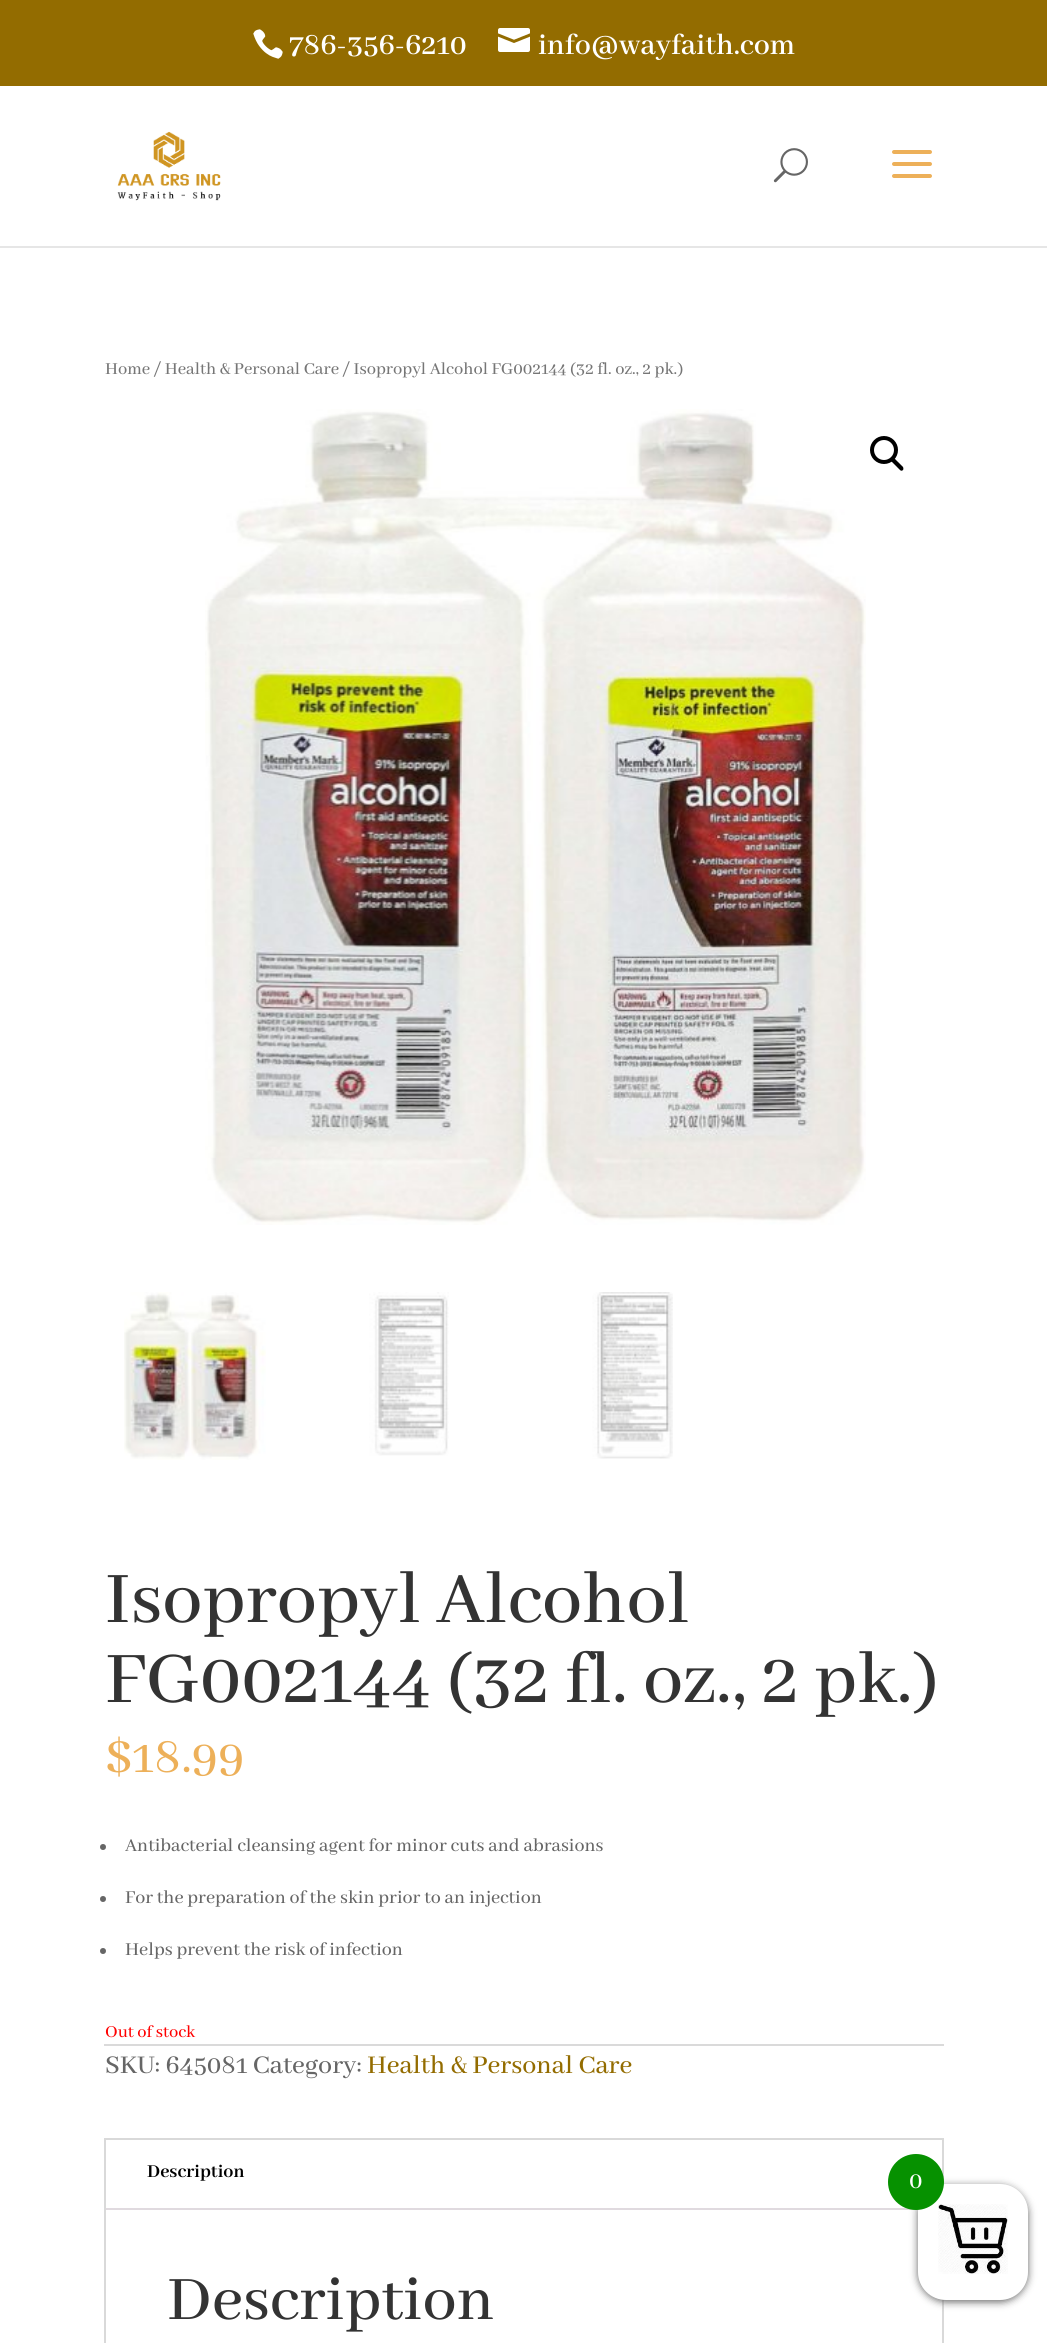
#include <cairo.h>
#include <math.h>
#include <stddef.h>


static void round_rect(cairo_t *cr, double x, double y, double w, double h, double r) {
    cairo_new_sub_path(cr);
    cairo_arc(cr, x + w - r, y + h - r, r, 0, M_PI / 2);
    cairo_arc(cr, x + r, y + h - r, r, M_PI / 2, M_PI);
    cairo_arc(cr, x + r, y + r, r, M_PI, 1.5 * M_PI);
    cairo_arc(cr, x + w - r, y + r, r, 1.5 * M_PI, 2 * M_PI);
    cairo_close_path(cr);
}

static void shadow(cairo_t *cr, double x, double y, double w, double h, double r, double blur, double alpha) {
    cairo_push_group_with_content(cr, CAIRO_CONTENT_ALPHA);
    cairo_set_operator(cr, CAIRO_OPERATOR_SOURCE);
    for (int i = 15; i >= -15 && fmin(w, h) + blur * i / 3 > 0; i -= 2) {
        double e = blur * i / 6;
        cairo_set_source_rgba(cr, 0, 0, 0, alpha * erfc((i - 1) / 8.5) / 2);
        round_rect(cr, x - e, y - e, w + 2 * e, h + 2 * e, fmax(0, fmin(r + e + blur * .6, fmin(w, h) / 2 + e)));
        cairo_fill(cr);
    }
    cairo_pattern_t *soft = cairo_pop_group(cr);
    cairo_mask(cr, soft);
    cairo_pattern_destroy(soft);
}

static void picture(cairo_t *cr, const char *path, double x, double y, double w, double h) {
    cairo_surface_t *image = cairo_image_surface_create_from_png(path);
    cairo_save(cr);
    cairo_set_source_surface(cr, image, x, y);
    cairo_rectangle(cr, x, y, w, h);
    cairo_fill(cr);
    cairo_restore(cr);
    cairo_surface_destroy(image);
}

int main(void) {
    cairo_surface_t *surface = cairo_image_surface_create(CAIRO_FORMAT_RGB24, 1047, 2343);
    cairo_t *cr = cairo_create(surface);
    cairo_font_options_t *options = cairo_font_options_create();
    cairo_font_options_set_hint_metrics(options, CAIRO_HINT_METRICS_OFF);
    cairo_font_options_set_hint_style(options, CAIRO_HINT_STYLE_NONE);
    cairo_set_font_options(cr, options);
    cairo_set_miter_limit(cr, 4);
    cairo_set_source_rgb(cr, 1, 1, 1);
    cairo_paint(cr);
    cairo_set_source_rgb(cr, 0.576, 0.424, 0);
    cairo_rectangle(cr, 0, 0, 1047, 86);
    cairo_fill(cr);
    picture(cr, "img1.png", 253, 29, 30, 30);
    cairo_select_font_face(cr, "Abhaya Libre SemiBold SemiBold", CAIRO_FONT_SLANT_NORMAL, CAIRO_FONT_WEIGHT_NORMAL);
    cairo_set_font_size(cr, 32);
    cairo_set_source_rgb(cr, 1, 1, 1);
    cairo_move_to(cr, 289, 54);
    cairo_show_text(cr, "786-356-6210");
    picture(cr, "img2.png", 498, 28, 32, 24);
    cairo_move_to(cr, 538, 54);
    cairo_show_text(cr, "info@wayfaith.com");
    cairo_set_source_rgb(cr, 0.902, 0.902, 0.902);
    cairo_rectangle(cr, 0, 246, 1047, 2);
    cairo_fill(cr);
    picture(cr, "img3.png", 117, 131, 104, 70);
    picture(cr, "img4.png", 773, 148, 35, 35);
    picture(cr, "img5.png", 892, 150, 40, 28);
    cairo_select_font_face(cr, "Abhaya Libre Medium Medium", CAIRO_FONT_SLANT_NORMAL, CAIRO_FONT_WEIGHT_NORMAL);
    cairo_set_font_size(cr, 18.4);
    cairo_set_source_rgb(cr, 0.463, 0.463, 0.463);
    cairo_move_to(cr, 105, 374);
    cairo_show_text(cr, "Home / Health & Personal Care / Isopropyl Alcohol FG002144 (32 fl. oz., 2 pk.)");
    picture(cr, "img6.png", 205, 409, 661, 816);
    cairo_arc(cr, 884, 450, 12, 0, 2 * M_PI);
    cairo_set_source_rgb(cr, 0, 0, 0);
    cairo_set_line_width(cr, 4);
    cairo_stroke(cr);
    cairo_new_path(cr);
    cairo_move_to(cr, 891.5, 458.5);
    cairo_curve_to(cr, 892.5, 458, 893.5, 458, 894.5, 458.5);
    cairo_line_to(cr, 903, 467);
    cairo_curve_to(cr, 903.5, 468, 903.5, 469.5, 903, 470);
    cairo_curve_to(cr, 902, 471, 901, 471, 900, 470);
    cairo_line_to(cr, 891.5, 461.5);
    cairo_curve_to(cr, 890.5, 461, 890.5, 459.5, 891.5, 458.5);
    cairo_close_path(cr);
    cairo_fill(cr);
    picture(cr, "img7.png", 124, 1292, 142, 168);
    picture(cr, "img8.png", 369, 1292, 80, 164);
    picture(cr, "img9.png", 592, 1292, 81, 167);
    cairo_set_font_size(cr, 80);
    cairo_set_source_rgb(cr, 0.2, 0.2, 0.2);
    cairo_move_to(cr, 105, 1622);
    cairo_show_text(cr, "Isopropyl Alcohol");
    cairo_move_to(cr, 105, 1702);
    cairo_show_text(cr, "FG002144 (32 fl. oz., 2 pk.)");
    cairo_set_font_size(cr, 52);
    cairo_set_source_rgb(cr, 0.929, 0.69, 0.349);
    cairo_move_to(cr, 105, 1772);
    cairo_show_text(cr, "$18.99");
    cairo_set_source_rgb(cr, 0.4, 0.4, 0.4);
    cairo_new_path(cr);
    cairo_arc(cr, 103, 1847, 3, 0, 2 * M_PI);
    cairo_fill(cr);
    cairo_set_font_size(cr, 20);
    cairo_move_to(cr, 125, 1851);
    cairo_show_text(cr, "Antibacterial cleansing agent for minor cuts and abrasions");
    cairo_new_path(cr);
    cairo_arc(cr, 103, 1899, 3, 0, 2 * M_PI);
    cairo_fill(cr);
    cairo_move_to(cr, 125, 1903);
    cairo_show_text(cr, "For the preparation of the skin prior to an injection");
    cairo_new_path(cr);
    cairo_arc(cr, 103, 1951, 3, 0, 2 * M_PI);
    cairo_fill(cr);
    cairo_move_to(cr, 125, 1955);
    cairo_show_text(cr, "Helps prevent the risk of infection");
    cairo_set_font_size(cr, 18.4);
    cairo_set_source_rgb(cr, 1, 0, 0);
    cairo_move_to(cr, 105, 2037);
    cairo_show_text(cr, "Out of stock");
    cairo_set_source_rgb(cr, 0.855, 0.855, 0.855);
    cairo_rectangle(cr, 104, 2044, 840, 2);
    cairo_fill(cr);
    cairo_set_font_size(cr, 28);
    cairo_set_source_rgb(cr, 0.4, 0.4, 0.4);
    cairo_move_to(cr, 105, 2073);
    cairo_show_text(cr, "SKU: 645081 Category:");
    cairo_set_source_rgb(cr, 0.576, 0.424, 0);
    cairo_move_to(cr, 367, 2073);
    cairo_show_text(cr, "Health & Personal Care");
    cairo_rectangle(cr, 105, 2139, 838, 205);
    cairo_set_source_rgb(cr, 0.851, 0.851, 0.851);
    cairo_set_line_width(cr, 2);
    cairo_stroke(cr);
    cairo_set_source_rgb(cr, 0.878, 0.855, 0.875);
    cairo_rectangle(cr, 106, 2208, 813, 2);
    cairo_fill(cr);
    cairo_select_font_face(cr, "Abhaya Libre", CAIRO_FONT_SLANT_NORMAL, CAIRO_FONT_WEIGHT_BOLD);
    cairo_set_font_size(cr, 20);
    cairo_set_source_rgb(cr, 0, 0, 0);
    cairo_move_to(cr, 147, 2177);
    cairo_show_text(cr, "Description");
    cairo_select_font_face(cr, "Abhaya Libre Medium Medium", CAIRO_FONT_SLANT_NORMAL, CAIRO_FONT_WEIGHT_NORMAL);
    cairo_set_font_size(cr, 68);
    cairo_set_source_rgb(cr, 0.2, 0.2, 0.2);
    cairo_move_to(cr, 167, 2319);
    cairo_show_text(cr, "Description");
    cairo_set_source_rgb(cr, 0.4, 0.4, 0.4);
    shadow(cr, 918, 2186, 110, 116, 28, 4, 1);
    cairo_set_source_rgb(cr, 1, 1, 1);
    round_rect(cr, 918, 2184, 110, 116, 28);
    cairo_fill(cr);
    picture(cr, "img10.png", 938, 2204, 70, 70);
    cairo_set_source_rgb(cr, 0.027, 0.569, 0);
    cairo_arc(cr, 916, 2182, 28, 0, 2 * M_PI);
    cairo_fill(cr);
    cairo_set_font_size(cr, 26);
    cairo_set_source_rgb(cr, 1, 1, 1);
    cairo_move_to(cr, 909, 2188);
    cairo_show_text(cr, "0");
    cairo_surface_write_to_png(surface, "page.png");
    cairo_font_options_destroy(options);
    cairo_destroy(cr);
    cairo_surface_destroy(surface);
    return 0;
}
